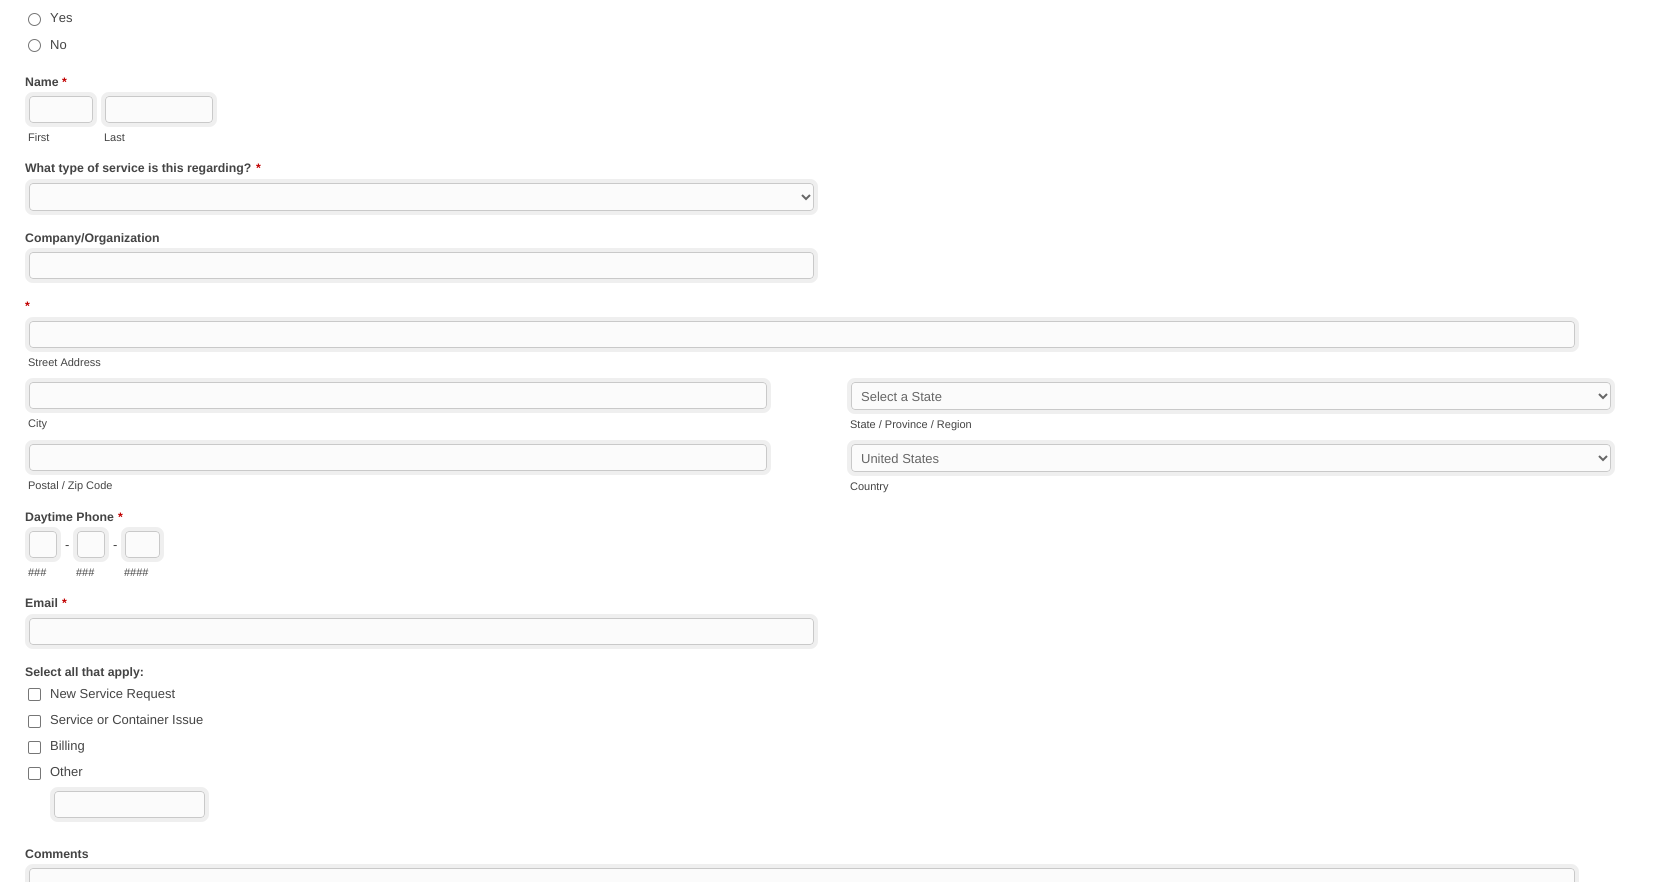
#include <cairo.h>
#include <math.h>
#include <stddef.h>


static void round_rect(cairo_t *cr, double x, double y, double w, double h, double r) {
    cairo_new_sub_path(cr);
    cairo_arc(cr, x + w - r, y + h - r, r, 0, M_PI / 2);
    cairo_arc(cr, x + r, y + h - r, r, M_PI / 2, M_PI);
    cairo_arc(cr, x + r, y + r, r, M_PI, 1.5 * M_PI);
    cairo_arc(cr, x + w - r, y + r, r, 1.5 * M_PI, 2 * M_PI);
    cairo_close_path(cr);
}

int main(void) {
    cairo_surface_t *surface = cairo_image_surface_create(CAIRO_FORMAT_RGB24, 1671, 882);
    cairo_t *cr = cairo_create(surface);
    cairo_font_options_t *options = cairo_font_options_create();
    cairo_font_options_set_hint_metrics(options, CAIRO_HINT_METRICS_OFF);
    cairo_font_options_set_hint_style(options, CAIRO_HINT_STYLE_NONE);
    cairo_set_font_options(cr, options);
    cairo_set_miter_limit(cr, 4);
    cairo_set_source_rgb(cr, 1, 1, 1);
    cairo_paint(cr);
    cairo_arc(cr, 34.5, 19.5, 6, 0, 2 * M_PI);
    cairo_set_source_rgb(cr, 0.463, 0.463, 0.463);
    cairo_set_line_width(cr, 1);
    cairo_stroke(cr);
    cairo_select_font_face(cr, "Liberation Sans", CAIRO_FONT_SLANT_NORMAL, CAIRO_FONT_WEIGHT_NORMAL);
    cairo_set_font_size(cr, 13);
    cairo_set_source_rgb(cr, 0.267, 0.267, 0.267);
    cairo_move_to(cr, 50, 22);
    cairo_show_text(cr, "Yes");
    cairo_new_path(cr);
    cairo_arc(cr, 34.5, 45.5, 6, 0, 2 * M_PI);
    cairo_set_source_rgb(cr, 0.463, 0.463, 0.463);
    cairo_stroke(cr);
    cairo_set_source_rgb(cr, 0.267, 0.267, 0.267);
    cairo_move_to(cr, 50, 49);
    cairo_show_text(cr, "No");
    cairo_select_font_face(cr, "Liberation Sans", CAIRO_FONT_SLANT_NORMAL, CAIRO_FONT_WEIGHT_BOLD);
    cairo_set_font_size(cr, 12.3);
    cairo_move_to(cr, 25, 86);
    cairo_show_text(cr, "Name");
    cairo_set_source_rgb(cr, 0.757, 0, 0);
    cairo_move_to(cr, 62, 86);
    cairo_show_text(cr, "*");
    cairo_set_source_rgb(cr, 0.984, 0.984, 0.984);
    round_rect(cr, 25, 92, 72, 35, 8);
    cairo_fill(cr);
    round_rect(cr, 29.5, 96.5, 63, 26, 3.5);
    cairo_set_source_rgb(cr, 0.788, 0.788, 0.788);
    cairo_stroke(cr);
    round_rect(cr, 27, 94, 68, 31, 6);
    cairo_set_source_rgb(cr, 0.937, 0.937, 0.937);
    cairo_set_line_width(cr, 4);
    cairo_stroke(cr);
    cairo_select_font_face(cr, "Liberation Sans", CAIRO_FONT_SLANT_NORMAL, CAIRO_FONT_WEIGHT_NORMAL);
    cairo_set_font_size(cr, 11);
    cairo_set_source_rgb(cr, 0.267, 0.267, 0.267);
    cairo_move_to(cr, 28, 141);
    cairo_show_text(cr, "First");
    cairo_set_source_rgb(cr, 0.984, 0.984, 0.984);
    round_rect(cr, 101, 92, 116, 35, 8);
    cairo_fill(cr);
    round_rect(cr, 105.5, 96.5, 107, 26, 3.5);
    cairo_set_source_rgb(cr, 0.788, 0.788, 0.788);
    cairo_set_line_width(cr, 1);
    cairo_stroke(cr);
    round_rect(cr, 103, 94, 112, 31, 6);
    cairo_set_source_rgb(cr, 0.937, 0.937, 0.937);
    cairo_set_line_width(cr, 4);
    cairo_stroke(cr);
    cairo_set_source_rgb(cr, 0.267, 0.267, 0.267);
    cairo_move_to(cr, 104, 141);
    cairo_show_text(cr, "Last");
    cairo_select_font_face(cr, "Liberation Sans", CAIRO_FONT_SLANT_NORMAL, CAIRO_FONT_WEIGHT_BOLD);
    cairo_set_font_size(cr, 12.3);
    cairo_move_to(cr, 25, 172);
    cairo_show_text(cr, "What type of service is this regarding?");
    cairo_set_source_rgb(cr, 0.757, 0, 0);
    cairo_move_to(cr, 256, 172);
    cairo_show_text(cr, "*");
    cairo_set_source_rgb(cr, 0.984, 0.984, 0.984);
    round_rect(cr, 25, 179, 793, 36, 8);
    cairo_fill(cr);
    round_rect(cr, 29.5, 183.5, 784, 27, 3.5);
    cairo_set_source_rgb(cr, 0.788, 0.788, 0.788);
    cairo_set_line_width(cr, 1);
    cairo_stroke(cr);
    round_rect(cr, 27, 181, 789, 32, 6);
    cairo_set_source_rgb(cr, 0.937, 0.937, 0.937);
    cairo_set_line_width(cr, 4);
    cairo_stroke(cr);
    cairo_new_path(cr);
    cairo_move_to(cr, 802, 195);
    cairo_line_to(cr, 806, 199);
    cairo_line_to(cr, 810, 195);
    cairo_set_source_rgb(cr, 0.4, 0.4, 0.4);
    cairo_set_line_width(cr, 2);
    cairo_stroke(cr);
    cairo_set_source_rgb(cr, 0.267, 0.267, 0.267);
    cairo_move_to(cr, 25, 242);
    cairo_show_text(cr, "Company/Organization");
    cairo_set_source_rgb(cr, 0.984, 0.984, 0.984);
    round_rect(cr, 25, 248, 793, 35, 8);
    cairo_fill(cr);
    round_rect(cr, 29.5, 252.5, 784, 26, 3.5);
    cairo_set_source_rgb(cr, 0.788, 0.788, 0.788);
    cairo_set_line_width(cr, 1);
    cairo_stroke(cr);
    round_rect(cr, 27, 250, 789, 31, 6);
    cairo_set_source_rgb(cr, 0.937, 0.937, 0.937);
    cairo_set_line_width(cr, 4);
    cairo_stroke(cr);
    cairo_set_source_rgb(cr, 0.757, 0, 0);
    cairo_move_to(cr, 25, 310);
    cairo_show_text(cr, "*");
    cairo_set_source_rgb(cr, 0.984, 0.984, 0.984);
    round_rect(cr, 25, 317, 1554, 35, 8);
    cairo_fill(cr);
    round_rect(cr, 29.5, 321.5, 1545, 26, 3.5);
    cairo_set_source_rgb(cr, 0.788, 0.788, 0.788);
    cairo_set_line_width(cr, 1);
    cairo_stroke(cr);
    round_rect(cr, 27, 319, 1550, 31, 6);
    cairo_set_source_rgb(cr, 0.937, 0.937, 0.937);
    cairo_set_line_width(cr, 4);
    cairo_stroke(cr);
    cairo_select_font_face(cr, "Liberation Sans", CAIRO_FONT_SLANT_NORMAL, CAIRO_FONT_WEIGHT_NORMAL);
    cairo_set_font_size(cr, 11);
    cairo_set_source_rgb(cr, 0.267, 0.267, 0.267);
    cairo_move_to(cr, 28, 366);
    cairo_show_text(cr, "Street Address");
    cairo_set_source_rgb(cr, 0.984, 0.984, 0.984);
    round_rect(cr, 25, 378, 746, 35, 8);
    cairo_fill(cr);
    round_rect(cr, 29.5, 382.5, 737, 26, 3.5);
    cairo_set_source_rgb(cr, 0.788, 0.788, 0.788);
    cairo_set_line_width(cr, 1);
    cairo_stroke(cr);
    round_rect(cr, 27, 380, 742, 31, 6);
    cairo_set_source_rgb(cr, 0.937, 0.937, 0.937);
    cairo_set_line_width(cr, 4);
    cairo_stroke(cr);
    cairo_set_source_rgb(cr, 0.267, 0.267, 0.267);
    cairo_move_to(cr, 28, 427);
    cairo_show_text(cr, "City");
    cairo_set_source_rgb(cr, 0.984, 0.984, 0.984);
    round_rect(cr, 847, 378, 768, 36, 8);
    cairo_fill(cr);
    round_rect(cr, 851.5, 382.5, 759, 27, 3.5);
    cairo_set_source_rgb(cr, 0.788, 0.788, 0.788);
    cairo_set_line_width(cr, 1);
    cairo_stroke(cr);
    round_rect(cr, 849, 380, 764, 32, 6);
    cairo_set_source_rgb(cr, 0.937, 0.937, 0.937);
    cairo_set_line_width(cr, 4);
    cairo_stroke(cr);
    cairo_new_path(cr);
    cairo_move_to(cr, 1599, 394);
    cairo_line_to(cr, 1603, 398);
    cairo_line_to(cr, 1607, 394);
    cairo_set_source_rgb(cr, 0.4, 0.4, 0.4);
    cairo_set_line_width(cr, 2);
    cairo_stroke(cr);
    cairo_set_font_size(cr, 13);
    cairo_move_to(cr, 861, 401);
    cairo_show_text(cr, "Select a State");
    cairo_set_font_size(cr, 11);
    cairo_set_source_rgb(cr, 0.267, 0.267, 0.267);
    cairo_move_to(cr, 850, 428);
    cairo_show_text(cr, "State / Province / Region");
    cairo_set_source_rgb(cr, 0.984, 0.984, 0.984);
    round_rect(cr, 25, 440, 746, 35, 8);
    cairo_fill(cr);
    round_rect(cr, 29.5, 444.5, 737, 26, 3.5);
    cairo_set_source_rgb(cr, 0.788, 0.788, 0.788);
    cairo_set_line_width(cr, 1);
    cairo_stroke(cr);
    round_rect(cr, 27, 442, 742, 31, 6);
    cairo_set_source_rgb(cr, 0.937, 0.937, 0.937);
    cairo_set_line_width(cr, 4);
    cairo_stroke(cr);
    cairo_set_source_rgb(cr, 0.267, 0.267, 0.267);
    cairo_move_to(cr, 28, 489);
    cairo_show_text(cr, "Postal / Zip Code");
    cairo_set_source_rgb(cr, 0.984, 0.984, 0.984);
    round_rect(cr, 847, 440, 768, 36, 8);
    cairo_fill(cr);
    round_rect(cr, 851.5, 444.5, 759, 27, 3.5);
    cairo_set_source_rgb(cr, 0.788, 0.788, 0.788);
    cairo_set_line_width(cr, 1);
    cairo_stroke(cr);
    round_rect(cr, 849, 442, 764, 32, 6);
    cairo_set_source_rgb(cr, 0.937, 0.937, 0.937);
    cairo_set_line_width(cr, 4);
    cairo_stroke(cr);
    cairo_new_path(cr);
    cairo_move_to(cr, 1599, 456);
    cairo_line_to(cr, 1603, 460);
    cairo_line_to(cr, 1607, 456);
    cairo_set_source_rgb(cr, 0.4, 0.4, 0.4);
    cairo_set_line_width(cr, 2);
    cairo_stroke(cr);
    cairo_set_font_size(cr, 13);
    cairo_move_to(cr, 861, 463);
    cairo_show_text(cr, "United States");
    cairo_set_font_size(cr, 11);
    cairo_set_source_rgb(cr, 0.267, 0.267, 0.267);
    cairo_move_to(cr, 850, 490);
    cairo_show_text(cr, "Country");
    cairo_select_font_face(cr, "Liberation Sans", CAIRO_FONT_SLANT_NORMAL, CAIRO_FONT_WEIGHT_BOLD);
    cairo_set_font_size(cr, 12.3);
    cairo_move_to(cr, 25, 521);
    cairo_show_text(cr, "Daytime Phone");
    cairo_set_source_rgb(cr, 0.757, 0, 0);
    cairo_move_to(cr, 118, 521);
    cairo_show_text(cr, "*");
    cairo_set_source_rgb(cr, 0.984, 0.984, 0.984);
    round_rect(cr, 25, 527, 36, 35, 8);
    cairo_fill(cr);
    round_rect(cr, 29.5, 531.5, 27, 26, 3.5);
    cairo_set_source_rgb(cr, 0.788, 0.788, 0.788);
    cairo_set_line_width(cr, 1);
    cairo_stroke(cr);
    round_rect(cr, 27, 529, 32, 31, 6);
    cairo_set_source_rgb(cr, 0.937, 0.937, 0.937);
    cairo_set_line_width(cr, 4);
    cairo_stroke(cr);
    cairo_select_font_face(cr, "Liberation Sans", CAIRO_FONT_SLANT_NORMAL, CAIRO_FONT_WEIGHT_NORMAL);
    cairo_set_font_size(cr, 13);
    cairo_set_source_rgb(cr, 0.267, 0.267, 0.267);
    cairo_move_to(cr, 65, 549);
    cairo_show_text(cr, "-");
    cairo_set_font_size(cr, 11);
    cairo_move_to(cr, 28, 576);
    cairo_show_text(cr, "###");
    cairo_set_source_rgb(cr, 0.984, 0.984, 0.984);
    round_rect(cr, 73, 527, 36, 35, 8);
    cairo_fill(cr);
    round_rect(cr, 77.5, 531.5, 27, 26, 3.5);
    cairo_set_source_rgb(cr, 0.788, 0.788, 0.788);
    cairo_set_line_width(cr, 1);
    cairo_stroke(cr);
    round_rect(cr, 75, 529, 32, 31, 6);
    cairo_set_source_rgb(cr, 0.937, 0.937, 0.937);
    cairo_set_line_width(cr, 4);
    cairo_stroke(cr);
    cairo_set_font_size(cr, 13);
    cairo_set_source_rgb(cr, 0.267, 0.267, 0.267);
    cairo_move_to(cr, 113, 549);
    cairo_show_text(cr, "-");
    cairo_set_font_size(cr, 11);
    cairo_move_to(cr, 76, 576);
    cairo_show_text(cr, "###");
    cairo_set_source_rgb(cr, 0.984, 0.984, 0.984);
    round_rect(cr, 121, 527, 43, 35, 8);
    cairo_fill(cr);
    round_rect(cr, 125.5, 531.5, 34, 26, 3.5);
    cairo_set_source_rgb(cr, 0.788, 0.788, 0.788);
    cairo_set_line_width(cr, 1);
    cairo_stroke(cr);
    round_rect(cr, 123, 529, 39, 31, 6);
    cairo_set_source_rgb(cr, 0.937, 0.937, 0.937);
    cairo_set_line_width(cr, 4);
    cairo_stroke(cr);
    cairo_set_source_rgb(cr, 0.267, 0.267, 0.267);
    cairo_move_to(cr, 124, 576);
    cairo_show_text(cr, "####");
    cairo_select_font_face(cr, "Liberation Sans", CAIRO_FONT_SLANT_NORMAL, CAIRO_FONT_WEIGHT_BOLD);
    cairo_set_font_size(cr, 12.3);
    cairo_move_to(cr, 25, 607);
    cairo_show_text(cr, "Email");
    cairo_set_source_rgb(cr, 0.757, 0, 0);
    cairo_move_to(cr, 62, 607);
    cairo_show_text(cr, "*");
    cairo_set_source_rgb(cr, 0.984, 0.984, 0.984);
    round_rect(cr, 25, 614, 793, 35, 8);
    cairo_fill(cr);
    round_rect(cr, 29.5, 618.5, 784, 26, 3.5);
    cairo_set_source_rgb(cr, 0.788, 0.788, 0.788);
    cairo_set_line_width(cr, 1);
    cairo_stroke(cr);
    round_rect(cr, 27, 616, 789, 31, 6);
    cairo_set_source_rgb(cr, 0.937, 0.937, 0.937);
    cairo_set_line_width(cr, 4);
    cairo_stroke(cr);
    cairo_set_source_rgb(cr, 0.267, 0.267, 0.267);
    cairo_move_to(cr, 25, 676);
    cairo_show_text(cr, "Select all that apply:");
    round_rect(cr, 28.5, 688.5, 12, 12, 1.5);
    cairo_set_source_rgb(cr, 0.463, 0.463, 0.463);
    cairo_set_line_width(cr, 1);
    cairo_stroke(cr);
    cairo_select_font_face(cr, "Liberation Sans", CAIRO_FONT_SLANT_NORMAL, CAIRO_FONT_WEIGHT_NORMAL);
    cairo_set_font_size(cr, 13);
    cairo_set_source_rgb(cr, 0.267, 0.267, 0.267);
    cairo_move_to(cr, 50, 698);
    cairo_show_text(cr, "New Service Request");
    round_rect(cr, 28.5, 715.5, 12, 12, 1.5);
    cairo_set_source_rgb(cr, 0.463, 0.463, 0.463);
    cairo_stroke(cr);
    cairo_set_source_rgb(cr, 0.267, 0.267, 0.267);
    cairo_move_to(cr, 50, 724);
    cairo_show_text(cr, "Service or Container Issue");
    round_rect(cr, 28.5, 741.5, 12, 12, 1.5);
    cairo_set_source_rgb(cr, 0.463, 0.463, 0.463);
    cairo_stroke(cr);
    cairo_set_source_rgb(cr, 0.267, 0.267, 0.267);
    cairo_move_to(cr, 50, 750);
    cairo_show_text(cr, "Billing");
    round_rect(cr, 28.5, 767.5, 12, 12, 1.5);
    cairo_set_source_rgb(cr, 0.463, 0.463, 0.463);
    cairo_stroke(cr);
    cairo_set_source_rgb(cr, 0.267, 0.267, 0.267);
    cairo_move_to(cr, 50, 776);
    cairo_show_text(cr, "Other");
    cairo_set_source_rgb(cr, 0.984, 0.984, 0.984);
    round_rect(cr, 50, 787, 159, 35, 8);
    cairo_fill(cr);
    round_rect(cr, 54.5, 791.5, 150, 26, 3.5);
    cairo_set_source_rgb(cr, 0.788, 0.788, 0.788);
    cairo_stroke(cr);
    round_rect(cr, 52, 789, 155, 31, 6);
    cairo_set_source_rgb(cr, 0.937, 0.937, 0.937);
    cairo_set_line_width(cr, 4);
    cairo_stroke(cr);
    cairo_select_font_face(cr, "Liberation Sans", CAIRO_FONT_SLANT_NORMAL, CAIRO_FONT_WEIGHT_BOLD);
    cairo_set_font_size(cr, 12.3);
    cairo_set_source_rgb(cr, 0.267, 0.267, 0.267);
    cairo_move_to(cr, 25, 858);
    cairo_show_text(cr, "Comments");
    cairo_set_source_rgb(cr, 0.984, 0.984, 0.984);
    round_rect(cr, 25, 864, 1554, 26, 8);
    cairo_fill(cr);
    round_rect(cr, 29.5, 868.5, 1545, 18, 3.5);
    cairo_set_source_rgb(cr, 0.788, 0.788, 0.788);
    cairo_set_line_width(cr, 1);
    cairo_stroke(cr);
    round_rect(cr, 27, 866, 1550, 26, 6);
    cairo_set_source_rgb(cr, 0.937, 0.937, 0.937);
    cairo_set_line_width(cr, 4);
    cairo_stroke(cr);
    cairo_surface_write_to_png(surface, "page.png");
    cairo_font_options_destroy(options);
    cairo_destroy(cr);
    cairo_surface_destroy(surface);
    return 0;
}
